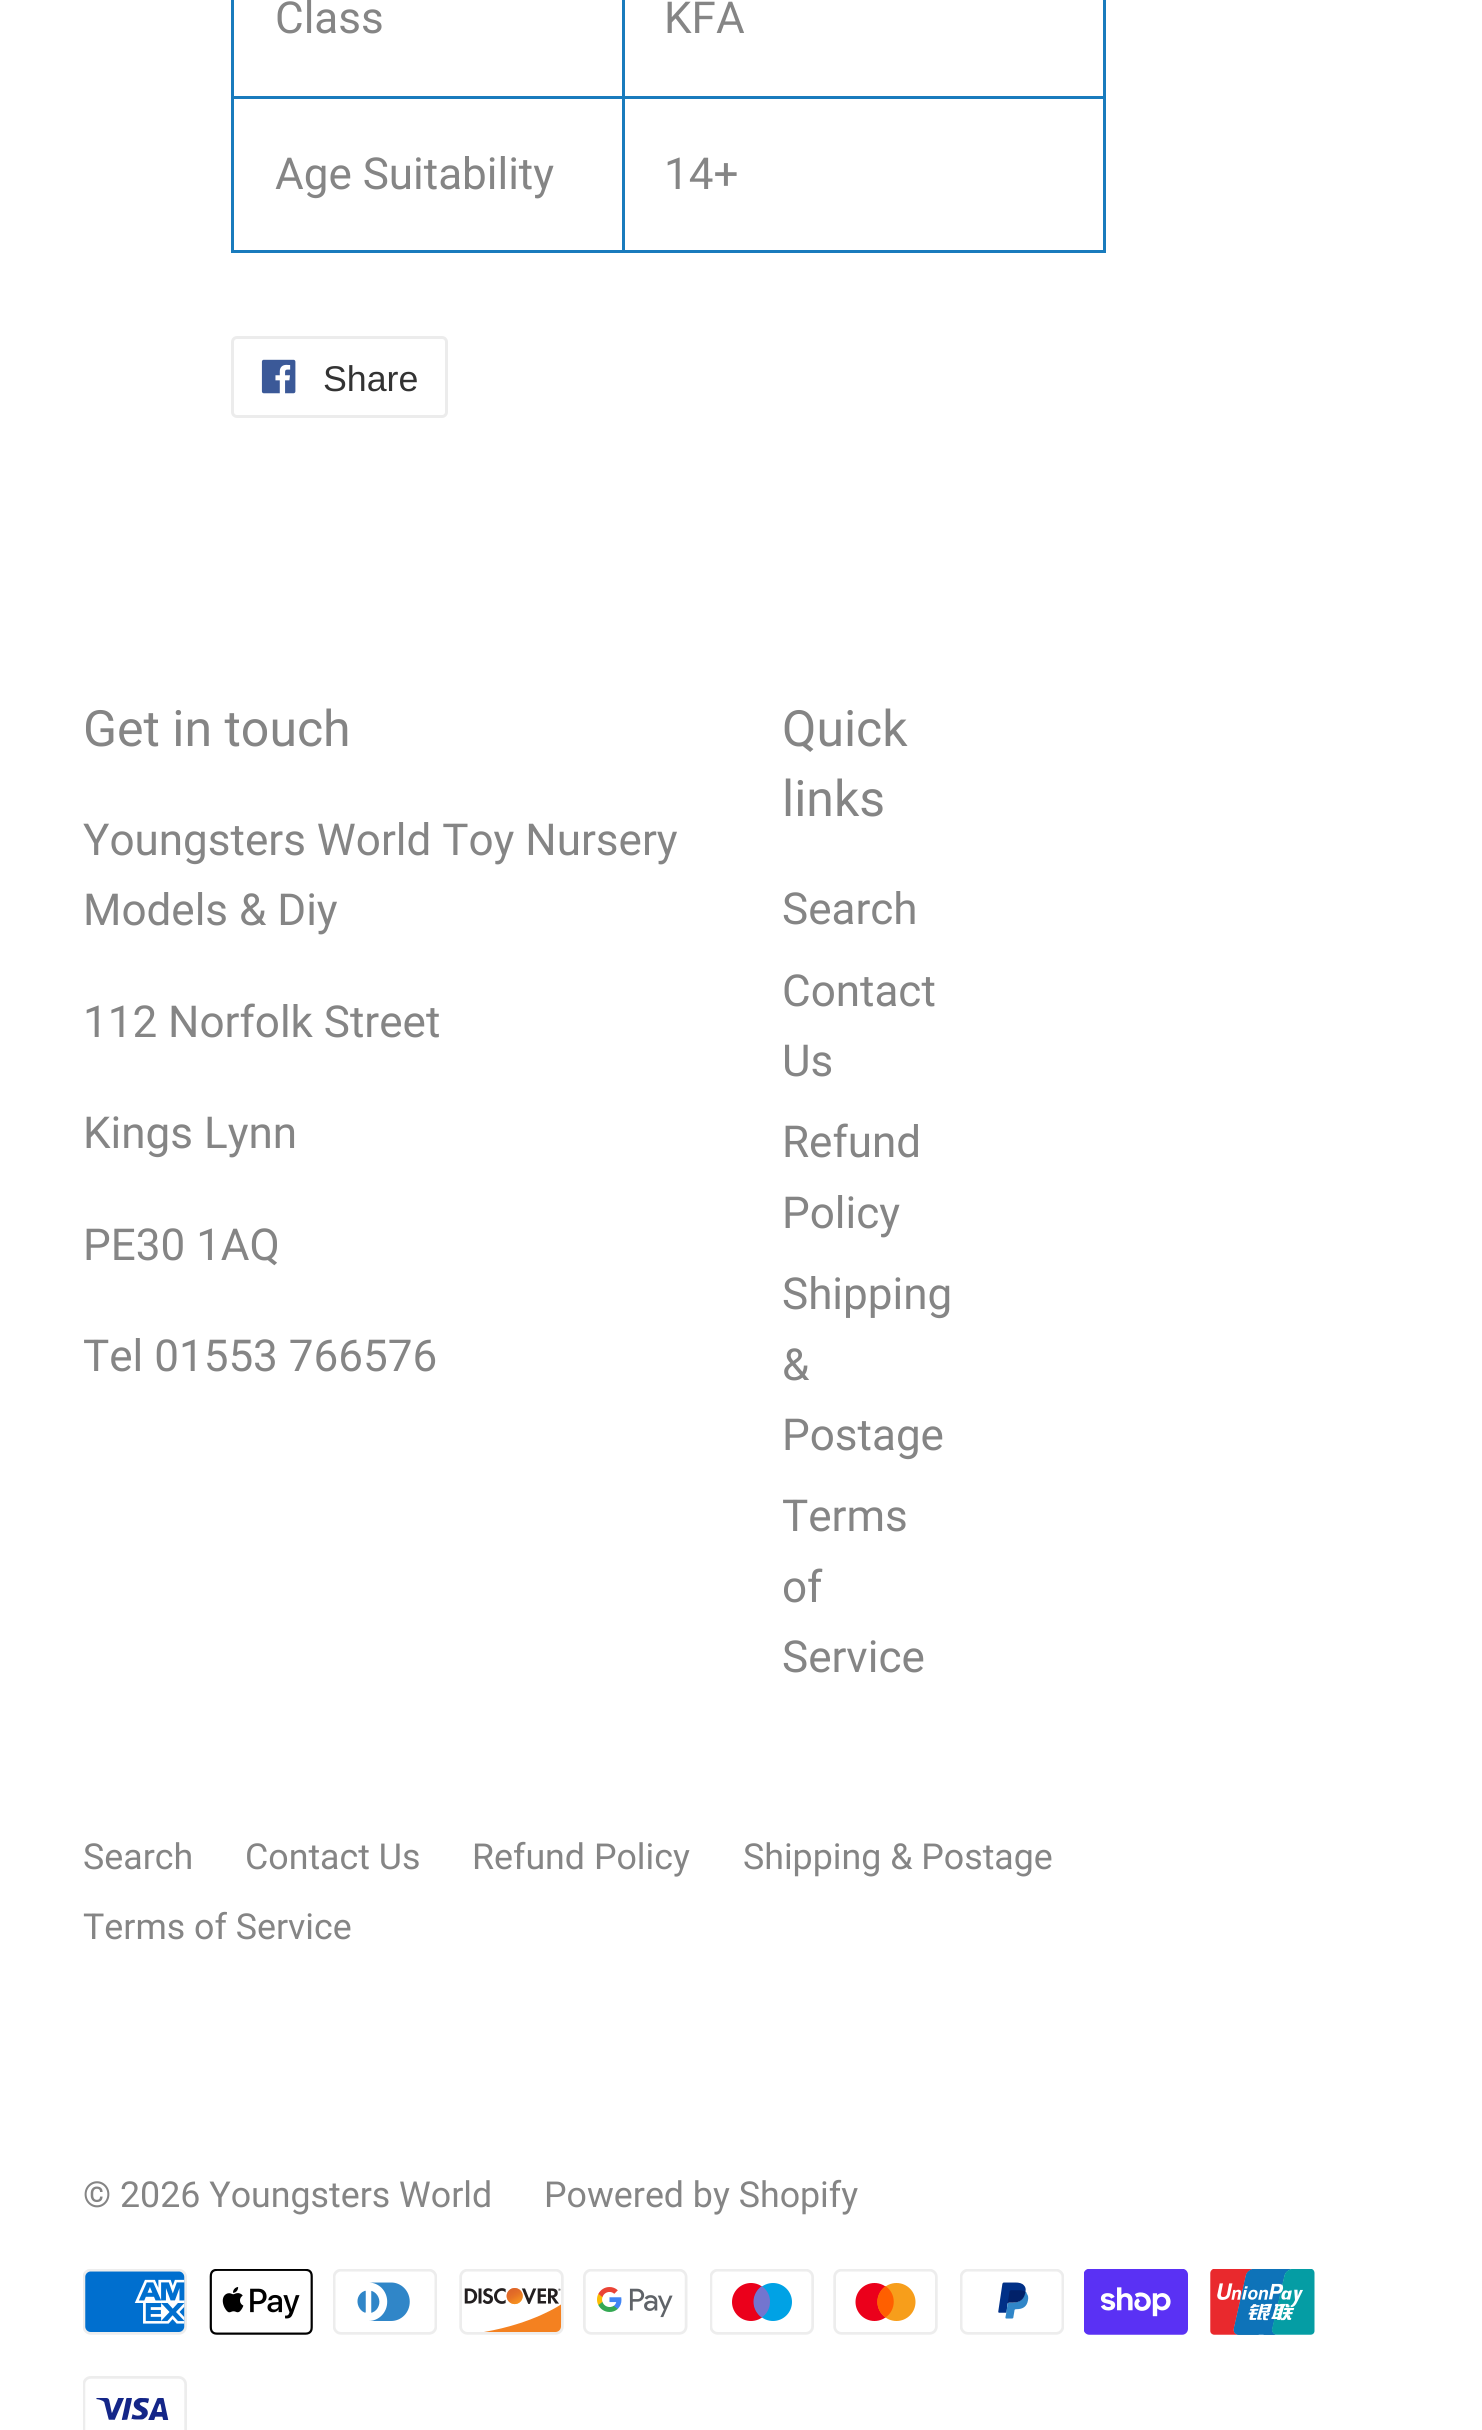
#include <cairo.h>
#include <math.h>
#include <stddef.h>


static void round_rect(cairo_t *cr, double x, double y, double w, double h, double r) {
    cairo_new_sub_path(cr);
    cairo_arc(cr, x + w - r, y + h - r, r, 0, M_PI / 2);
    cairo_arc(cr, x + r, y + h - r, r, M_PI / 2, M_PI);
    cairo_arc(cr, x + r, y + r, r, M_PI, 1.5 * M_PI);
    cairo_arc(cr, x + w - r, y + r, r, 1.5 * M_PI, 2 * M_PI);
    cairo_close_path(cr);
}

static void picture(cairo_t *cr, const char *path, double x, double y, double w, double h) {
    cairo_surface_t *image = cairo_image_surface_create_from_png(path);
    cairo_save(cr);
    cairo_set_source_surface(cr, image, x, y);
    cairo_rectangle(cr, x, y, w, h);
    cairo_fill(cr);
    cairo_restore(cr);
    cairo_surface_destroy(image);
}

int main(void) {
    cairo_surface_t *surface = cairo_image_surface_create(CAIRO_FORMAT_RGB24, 1482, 2430);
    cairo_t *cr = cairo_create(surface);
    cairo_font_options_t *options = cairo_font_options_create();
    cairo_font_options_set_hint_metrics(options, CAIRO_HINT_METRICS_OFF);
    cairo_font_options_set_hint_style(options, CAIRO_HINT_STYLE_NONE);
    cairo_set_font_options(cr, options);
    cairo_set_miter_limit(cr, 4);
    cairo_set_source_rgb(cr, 1, 1, 1);
    cairo_paint(cr);
    cairo_select_font_face(cr, "Roboto", CAIRO_FONT_SLANT_NORMAL, CAIRO_FONT_WEIGHT_NORMAL);
    cairo_set_font_size(cr, 44);
    cairo_set_source_rgb(cr, 0.522, 0.522, 0.522);
    cairo_move_to(cr, 275, 33);
    cairo_show_text(cr, "Class");
    cairo_set_source_rgb(cr, 0.098, 0.482, 0.741);
    cairo_rectangle(cr, 622, 96, 484, 3);
    cairo_fill(cr);
    cairo_rectangle(cr, 1103, 0, 3, 253);
    cairo_fill(cr);
    cairo_rectangle(cr, 622, 250, 484, 3);
    cairo_fill(cr);
    cairo_rectangle(cr, 622, 96, 3, 157);
    cairo_fill(cr);
    cairo_rectangle(cr, 231, 96, 393, 3);
    cairo_fill(cr);
    cairo_rectangle(cr, 622, 0, 3, 99);
    cairo_fill(cr);
    cairo_set_source_rgb(cr, 0.522, 0.522, 0.522);
    cairo_move_to(cr, 664, 33);
    cairo_show_text(cr, "KFA");
    cairo_set_source_rgb(cr, 0.098, 0.482, 0.741);
    cairo_rectangle(cr, 231, 250, 393, 3);
    cairo_fill(cr);
    cairo_rectangle(cr, 231, 0, 3, 253);
    cairo_fill(cr);
    cairo_set_source_rgb(cr, 0.522, 0.522, 0.522);
    cairo_move_to(cr, 275, 189);
    cairo_show_text(cr, "Age Suitability");
    cairo_move_to(cr, 664, 189);
    cairo_show_text(cr, "14+");
    round_rect(cr, 232.5, 337.5, 214, 79, 4.5);
    cairo_set_source_rgb(cr, 0.925, 0.925, 0.925);
    cairo_set_line_width(cr, 3);
    cairo_stroke(cr);
    picture(cr, "img1.png", 261, 359, 35, 35);
    cairo_select_font_face(cr, "Liberation Sans", CAIRO_FONT_SLANT_NORMAL, CAIRO_FONT_WEIGHT_NORMAL);
    cairo_set_font_size(cr, 35.75);
    cairo_set_source_rgb(cr, 0.2, 0.2, 0.2);
    cairo_move_to(cr, 323, 391);
    cairo_show_text(cr, "Share");
    cairo_select_font_face(cr, "Roboto", CAIRO_FONT_SLANT_NORMAL, CAIRO_FONT_WEIGHT_NORMAL);
    cairo_set_font_size(cr, 50);
    cairo_set_source_rgb(cr, 0.522, 0.522, 0.522);
    cairo_move_to(cr, 83, 746);
    cairo_show_text(cr, "Get in touch");
    cairo_set_font_size(cr, 44);
    cairo_move_to(cr, 83, 855);
    cairo_show_text(cr, "Youngsters World Toy Nursery");
    cairo_move_to(cr, 83, 925);
    cairo_show_text(cr, "Models & Diy");
    cairo_move_to(cr, 83, 1037);
    cairo_show_text(cr, "112 Norfolk Street");
    cairo_move_to(cr, 83, 1148);
    cairo_show_text(cr, "Kings Lynn");
    cairo_move_to(cr, 83, 1260);
    cairo_show_text(cr, "PE30 1AQ");
    cairo_move_to(cr, 83, 1371);
    cairo_show_text(cr, "Tel 01553 766576");
    cairo_set_font_size(cr, 50);
    cairo_move_to(cr, 782, 746);
    cairo_show_text(cr, "Quick");
    cairo_move_to(cr, 782, 816);
    cairo_show_text(cr, "links");
    cairo_set_font_size(cr, 44);
    cairo_move_to(cr, 782, 924);
    cairo_show_text(cr, "Search");
    cairo_move_to(cr, 782, 1006);
    cairo_show_text(cr, "Contact");
    cairo_move_to(cr, 782, 1076);
    cairo_show_text(cr, "Us");
    cairo_move_to(cr, 782, 1157);
    cairo_show_text(cr, "Refund");
    cairo_move_to(cr, 782, 1228);
    cairo_show_text(cr, "Policy");
    cairo_move_to(cr, 782, 1309);
    cairo_show_text(cr, "Shipping");
    cairo_move_to(cr, 782, 1380);
    cairo_show_text(cr, "&");
    cairo_move_to(cr, 782, 1450);
    cairo_show_text(cr, "Postage");
    cairo_move_to(cr, 782, 1531);
    cairo_show_text(cr, "Terms");
    cairo_move_to(cr, 782, 1602);
    cairo_show_text(cr, "of");
    cairo_move_to(cr, 782, 1672);
    cairo_show_text(cr, "Service");
    cairo_set_font_size(cr, 35.75);
    cairo_move_to(cr, 83, 1869);
    cairo_show_text(cr, "Search");
    cairo_move_to(cr, 245, 1869);
    cairo_show_text(cr, "Contact Us");
    cairo_move_to(cr, 472, 1869);
    cairo_show_text(cr, "Refund Policy");
    cairo_move_to(cr, 743, 1869);
    cairo_show_text(cr, "Shipping & Postage");
    cairo_move_to(cr, 83, 1939);
    cairo_show_text(cr, "Terms of Service");
    cairo_move_to(cr, 83, 2207);
    cairo_show_text(cr, "© 2026 Youngsters World");
    cairo_move_to(cr, 544, 2207);
    cairo_show_text(cr, "Powered by Shopify");
    picture(cr, "img2.png", 83, 2269, 104, 66);
    picture(cr, "img3.png", 209, 2269, 104, 66);
    picture(cr, "img4.png", 333, 2269, 104, 66);
    picture(cr, "img5.png", 459, 2269, 105, 66);
    picture(cr, "img6.png", 583, 2269, 105, 66);
    picture(cr, "img7.png", 710, 2269, 104, 66);
    picture(cr, "img8.png", 833, 2269, 105, 66);
    picture(cr, "img9.png", 960, 2269, 104, 66);
    picture(cr, "img10.png", 1084, 2269, 104, 66);
    picture(cr, "img11.png", 1210, 2269, 105, 66);
    picture(cr, "img12.png", 83, 2376, 104, 54);
    cairo_surface_write_to_png(surface, "page.png");
    cairo_font_options_destroy(options);
    cairo_destroy(cr);
    cairo_surface_destroy(surface);
    return 0;
}
